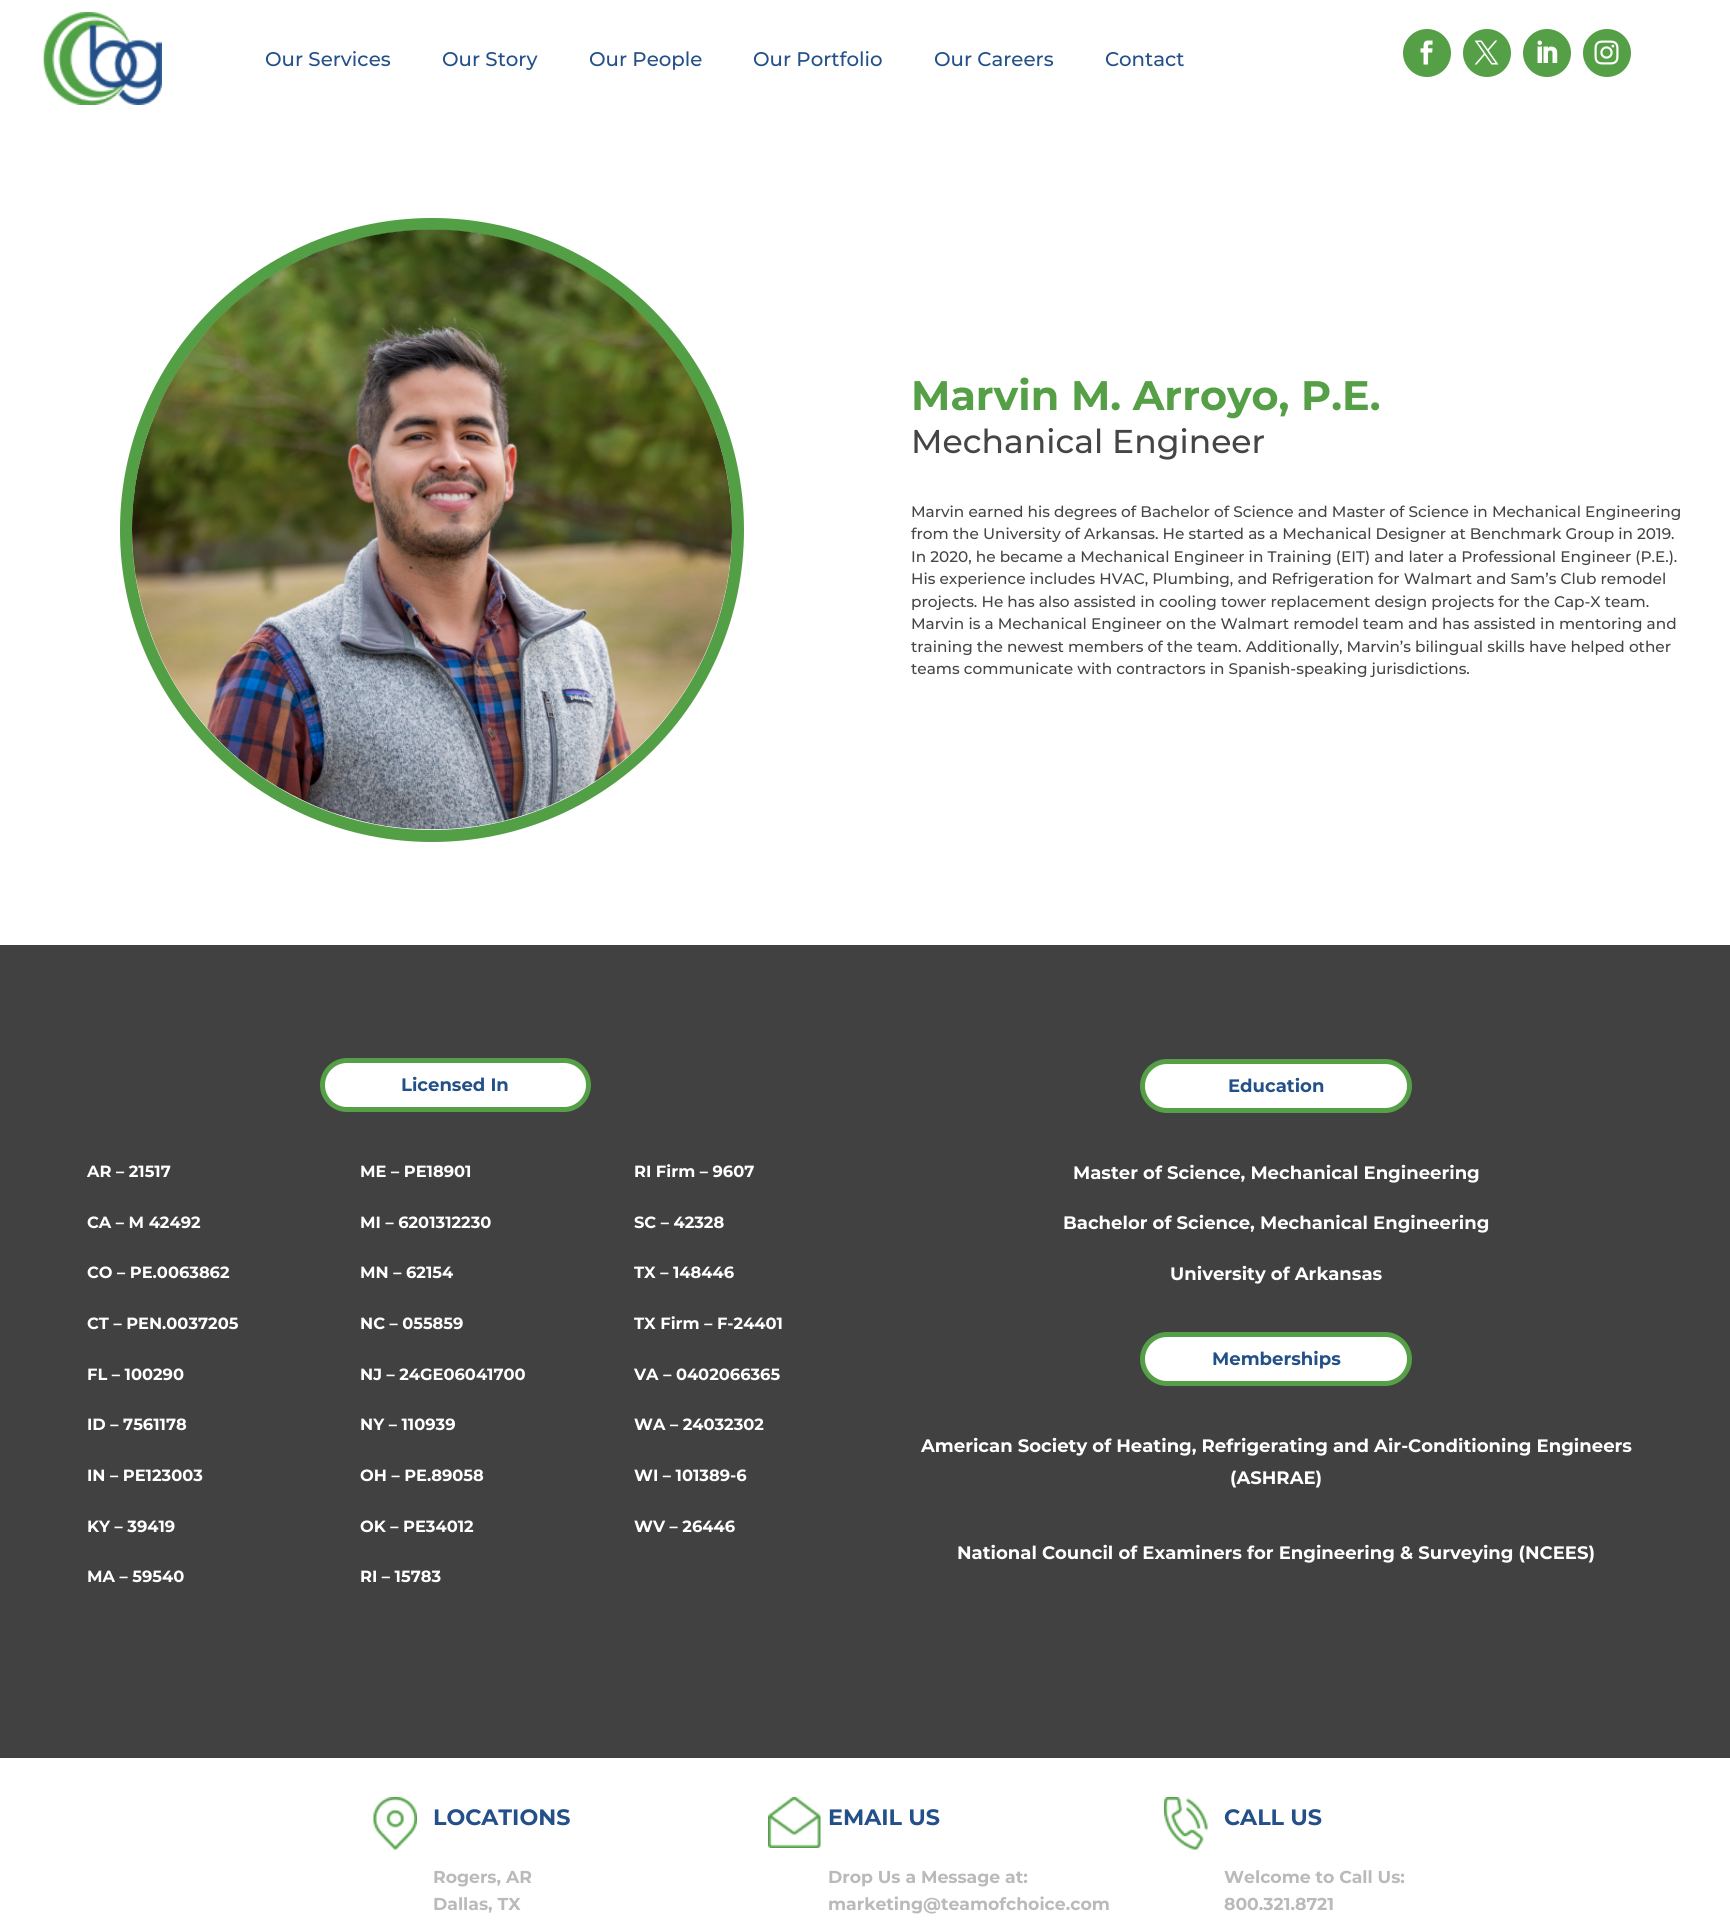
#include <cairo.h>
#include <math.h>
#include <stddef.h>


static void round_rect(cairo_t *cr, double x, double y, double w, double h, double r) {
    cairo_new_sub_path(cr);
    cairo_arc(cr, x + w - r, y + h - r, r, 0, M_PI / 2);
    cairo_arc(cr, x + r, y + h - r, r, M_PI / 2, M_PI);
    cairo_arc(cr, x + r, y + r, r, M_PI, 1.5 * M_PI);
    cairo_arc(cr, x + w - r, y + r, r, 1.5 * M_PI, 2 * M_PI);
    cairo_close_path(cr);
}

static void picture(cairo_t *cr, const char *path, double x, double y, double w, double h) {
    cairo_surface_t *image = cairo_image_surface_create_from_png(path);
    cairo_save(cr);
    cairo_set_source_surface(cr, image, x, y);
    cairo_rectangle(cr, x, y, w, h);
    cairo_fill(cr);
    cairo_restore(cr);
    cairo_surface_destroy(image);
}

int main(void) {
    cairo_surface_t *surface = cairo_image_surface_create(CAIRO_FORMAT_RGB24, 1730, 1927);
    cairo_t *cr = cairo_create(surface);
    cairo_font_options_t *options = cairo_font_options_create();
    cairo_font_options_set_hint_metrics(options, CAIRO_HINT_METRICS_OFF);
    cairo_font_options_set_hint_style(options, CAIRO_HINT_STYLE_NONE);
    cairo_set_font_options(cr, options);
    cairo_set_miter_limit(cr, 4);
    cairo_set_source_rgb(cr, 1, 1, 1);
    cairo_paint(cr);
    picture(cr, "img1.png", 43, 12, 119, 93);
    cairo_select_font_face(cr, "Montserrat Medium", CAIRO_FONT_SLANT_NORMAL, CAIRO_FONT_WEIGHT_NORMAL);
    cairo_set_font_size(cr, 19.75);
    cairo_set_source_rgb(cr, 0.137, 0.314, 0.537);
    cairo_move_to(cr, 265, 66);
    cairo_show_text(cr, "Our Services");
    cairo_move_to(cr, 442, 66);
    cairo_show_text(cr, "Our Story");
    cairo_move_to(cr, 589, 66);
    cairo_show_text(cr, "Our People");
    cairo_move_to(cr, 753, 66);
    cairo_show_text(cr, "Our Portfolio");
    cairo_move_to(cr, 934, 66);
    cairo_show_text(cr, "Our Careers");
    cairo_move_to(cr, 1105, 66);
    cairo_show_text(cr, "Contact");
    cairo_set_source_rgb(cr, 0.333, 0.624, 0.275);
    cairo_new_path(cr);
    cairo_arc(cr, 1427, 53, 24, 0, 2 * M_PI);
    cairo_fill(cr);
    picture(cr, "img2.png", 1420, 40, 13, 25);
    cairo_arc(cr, 1487, 53, 24, 0, 2 * M_PI);
    cairo_fill(cr);
    picture(cr, "img3.png", 1474, 40, 25, 25);
    cairo_arc(cr, 1547, 53, 24, 0, 2 * M_PI);
    cairo_fill(cr);
    picture(cr, "img4.png", 1537, 40, 21, 23);
    cairo_arc(cr, 1607, 53, 24, 0, 2 * M_PI);
    cairo_fill(cr);
    picture(cr, "img5.png", 1594, 40, 25, 25);
    cairo_arc(cr, 432, 530, 306, 0, 2 * M_PI);
    cairo_set_source_rgb(cr, 0.325, 0.624, 0.275);
    cairo_set_line_width(cr, 12);
    cairo_stroke(cr);
    picture(cr, "img6.png", 132, 229, 600, 601);
    cairo_select_font_face(cr, "Montserrat", CAIRO_FONT_SLANT_NORMAL, CAIRO_FONT_WEIGHT_BOLD);
    cairo_set_font_size(cr, 41.25);
    cairo_set_source_rgb(cr, 0.333, 0.624, 0.275);
    cairo_move_to(cr, 911, 410);
    cairo_show_text(cr, "Marvin M. Arroyo, P.E.");
    cairo_select_font_face(cr, "Montserrat Medium", CAIRO_FONT_SLANT_NORMAL, CAIRO_FONT_WEIGHT_NORMAL);
    cairo_set_font_size(cr, 33);
    cairo_set_source_rgb(cr, 0.271, 0.271, 0.271);
    cairo_move_to(cr, 911, 453);
    cairo_show_text(cr, "Mechanical Engineer");
    cairo_set_font_size(cr, 15.3);
    cairo_move_to(cr, 911, 517);
    cairo_show_text(cr, "Marvin earned his degrees of Bachelor of Science and Master of Science in Mechanical Engineering");
    cairo_move_to(cr, 911, 539);
    cairo_show_text(cr, "from the University of Arkansas. He started as a Mechanical Designer at Benchmark Group in 2019.");
    cairo_move_to(cr, 911, 562);
    cairo_show_text(cr, "In 2020, he became a Mechanical Engineer in Training (EIT) and later a Professional Engineer (P.E.).");
    cairo_move_to(cr, 911, 584);
    cairo_show_text(cr, "His experience includes HVAC, Plumbing, and Refrigeration for Walmart and Sam’s Club remodel");
    cairo_move_to(cr, 911, 607);
    cairo_show_text(cr, "projects. He has also assisted in cooling tower replacement design projects for the Cap-X team.");
    cairo_move_to(cr, 911, 629);
    cairo_show_text(cr, "Marvin is a Mechanical Engineer on the Walmart remodel team and has assisted in mentoring and");
    cairo_move_to(cr, 911, 652);
    cairo_show_text(cr, "training the newest members of the team. Additionally, Marvin’s bilingual skills have helped other");
    cairo_move_to(cr, 911, 674);
    cairo_show_text(cr, "teams communicate with contractors in Spanish-speaking jurisdictions.");
    cairo_set_source_rgb(cr, 0.255, 0.255, 0.255);
    cairo_rectangle(cr, 0, 945, 1730, 813);
    cairo_fill(cr);
    cairo_set_source_rgb(cr, 1, 1, 1);
    round_rect(cr, 322.5, 1060.5, 266, 49, 24.5);
    cairo_fill_preserve(cr);
    cairo_set_source_rgb(cr, 0.333, 0.624, 0.275);
    cairo_set_line_width(cr, 5);
    cairo_stroke(cr);
    cairo_select_font_face(cr, "Montserrat", CAIRO_FONT_SLANT_NORMAL, CAIRO_FONT_WEIGHT_BOLD);
    cairo_set_font_size(cr, 18.05);
    cairo_set_source_rgb(cr, 0.137, 0.314, 0.537);
    cairo_move_to(cr, 401, 1091);
    cairo_show_text(cr, "Licensed In");
    cairo_set_font_size(cr, 16.25);
    cairo_set_source_rgb(cr, 1, 1, 1);
    cairo_move_to(cr, 87, 1177);
    cairo_show_text(cr, "AR – 21517");
    cairo_move_to(cr, 87, 1228);
    cairo_show_text(cr, "CA – M 42492");
    cairo_move_to(cr, 87, 1278);
    cairo_show_text(cr, "CO – PE.0063862");
    cairo_move_to(cr, 87, 1329);
    cairo_show_text(cr, "CT – PEN.0037205");
    cairo_move_to(cr, 87, 1380);
    cairo_show_text(cr, "FL – 100290");
    cairo_move_to(cr, 87, 1430);
    cairo_show_text(cr, "ID – 7561178");
    cairo_move_to(cr, 87, 1481);
    cairo_show_text(cr, "IN – PE123003");
    cairo_move_to(cr, 87, 1532);
    cairo_show_text(cr, "KY – 39419");
    cairo_move_to(cr, 87, 1582);
    cairo_show_text(cr, "MA – 59540");
    cairo_move_to(cr, 360, 1177);
    cairo_show_text(cr, "ME – PE18901");
    cairo_move_to(cr, 360, 1228);
    cairo_show_text(cr, "MI – 6201312230");
    cairo_move_to(cr, 360, 1278);
    cairo_show_text(cr, "MN – 62154");
    cairo_move_to(cr, 360, 1329);
    cairo_show_text(cr, "NC – 055859");
    cairo_move_to(cr, 360, 1380);
    cairo_show_text(cr, "NJ – 24GE06041700");
    cairo_move_to(cr, 360, 1430);
    cairo_show_text(cr, "NY – 110939");
    cairo_move_to(cr, 360, 1481);
    cairo_show_text(cr, "OH – PE.89058");
    cairo_move_to(cr, 360, 1532);
    cairo_show_text(cr, "OK – PE34012");
    cairo_move_to(cr, 360, 1582);
    cairo_show_text(cr, "RI – 15783");
    cairo_move_to(cr, 634, 1177);
    cairo_show_text(cr, "RI Firm – 9607");
    cairo_move_to(cr, 634, 1228);
    cairo_show_text(cr, "SC – 42328");
    cairo_move_to(cr, 634, 1278);
    cairo_show_text(cr, "TX – 148446");
    cairo_move_to(cr, 634, 1329);
    cairo_show_text(cr, "TX Firm – F-24401");
    cairo_move_to(cr, 634, 1380);
    cairo_show_text(cr, "VA – 0402066365");
    cairo_move_to(cr, 634, 1430);
    cairo_show_text(cr, "WA – 24032302");
    cairo_move_to(cr, 634, 1481);
    cairo_show_text(cr, "WI – 101389-6");
    cairo_move_to(cr, 634, 1532);
    cairo_show_text(cr, "WV – 26446");
    round_rect(cr, 1142.5, 1061.5, 267, 49, 24.5);
    cairo_fill_preserve(cr);
    cairo_set_source_rgb(cr, 0.333, 0.624, 0.275);
    cairo_stroke(cr);
    cairo_set_font_size(cr, 18.05);
    cairo_set_source_rgb(cr, 0.137, 0.314, 0.537);
    cairo_move_to(cr, 1228, 1092);
    cairo_show_text(cr, "Education");
    cairo_set_source_rgb(cr, 1, 1, 1);
    cairo_move_to(cr, 1073, 1179);
    cairo_show_text(cr, "Master of Science, Mechanical Engineering");
    cairo_move_to(cr, 1063, 1229);
    cairo_show_text(cr, "Bachelor of Science, Mechanical Engineering");
    cairo_move_to(cr, 1170, 1280);
    cairo_show_text(cr, "University of Arkansas");
    round_rect(cr, 1142.5, 1334.5, 267, 49, 24.5);
    cairo_fill_preserve(cr);
    cairo_set_source_rgb(cr, 0.333, 0.624, 0.275);
    cairo_stroke(cr);
    cairo_set_source_rgb(cr, 0.137, 0.314, 0.537);
    cairo_move_to(cr, 1212, 1365);
    cairo_show_text(cr, "Memberships");
    cairo_set_source_rgb(cr, 1, 1, 1);
    cairo_move_to(cr, 921, 1452);
    cairo_show_text(cr, "American Society of Heating, Refrigerating and Air-Conditioning Engineers");
    cairo_move_to(cr, 1230, 1484);
    cairo_show_text(cr, "(ASHRAE)");
    cairo_move_to(cr, 957, 1559);
    cairo_show_text(cr, "National Council of Examiners for Engineering & Surveying (NCEES)");
    picture(cr, "img7.png", 373, 1797, 44, 53);
    cairo_set_font_size(cr, 22.25);
    cairo_set_source_rgb(cr, 0.137, 0.314, 0.537);
    cairo_move_to(cr, 433, 1825);
    cairo_show_text(cr, "LOCATIONS");
    cairo_set_font_size(cr, 17.25);
    cairo_set_source_rgb(cr, 0.729, 0.729, 0.729);
    cairo_move_to(cr, 433, 1883);
    cairo_show_text(cr, "Rogers, AR");
    cairo_move_to(cr, 433, 1910);
    cairo_show_text(cr, "Dallas, TX");
    picture(cr, "img8.png", 768, 1797, 53, 51);
    cairo_set_font_size(cr, 22.25);
    cairo_set_source_rgb(cr, 0.137, 0.314, 0.537);
    cairo_move_to(cr, 828, 1825);
    cairo_show_text(cr, "EMAIL US");
    cairo_set_font_size(cr, 17.25);
    cairo_set_source_rgb(cr, 0.729, 0.729, 0.729);
    cairo_move_to(cr, 828, 1883);
    cairo_show_text(cr, "Drop Us a Message at:");
    cairo_move_to(cr, 828, 1910);
    cairo_show_text(cr, "marketing@teamofchoice.com");
    picture(cr, "img9.png", 1164, 1797, 44, 53);
    cairo_set_font_size(cr, 22.25);
    cairo_set_source_rgb(cr, 0.137, 0.314, 0.537);
    cairo_move_to(cr, 1224, 1825);
    cairo_show_text(cr, "CALL US");
    cairo_set_font_size(cr, 17.25);
    cairo_set_source_rgb(cr, 0.729, 0.729, 0.729);
    cairo_move_to(cr, 1224, 1883);
    cairo_show_text(cr, "Welcome to Call Us:");
    cairo_move_to(cr, 1224, 1910);
    cairo_show_text(cr, "800.321.8721");
    cairo_surface_write_to_png(surface, "page.png");
    cairo_font_options_destroy(options);
    cairo_destroy(cr);
    cairo_surface_destroy(surface);
    return 0;
}
